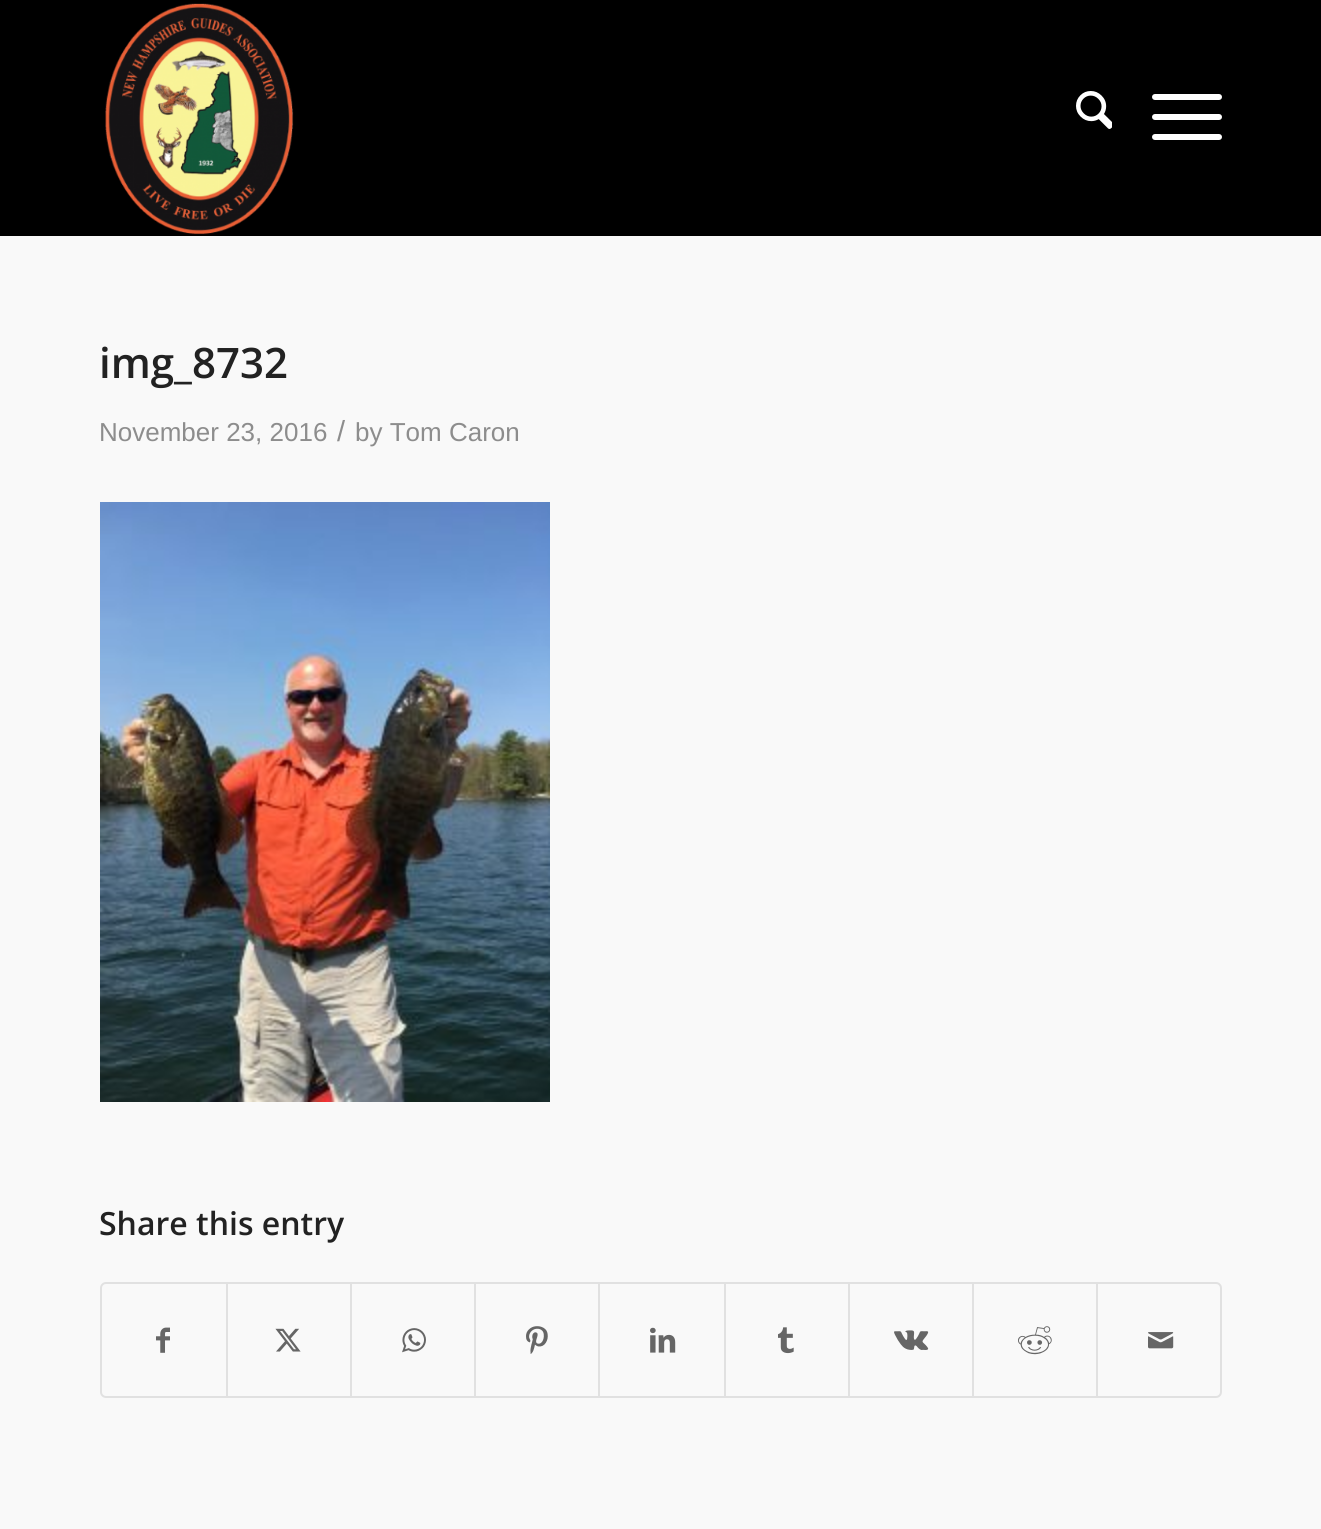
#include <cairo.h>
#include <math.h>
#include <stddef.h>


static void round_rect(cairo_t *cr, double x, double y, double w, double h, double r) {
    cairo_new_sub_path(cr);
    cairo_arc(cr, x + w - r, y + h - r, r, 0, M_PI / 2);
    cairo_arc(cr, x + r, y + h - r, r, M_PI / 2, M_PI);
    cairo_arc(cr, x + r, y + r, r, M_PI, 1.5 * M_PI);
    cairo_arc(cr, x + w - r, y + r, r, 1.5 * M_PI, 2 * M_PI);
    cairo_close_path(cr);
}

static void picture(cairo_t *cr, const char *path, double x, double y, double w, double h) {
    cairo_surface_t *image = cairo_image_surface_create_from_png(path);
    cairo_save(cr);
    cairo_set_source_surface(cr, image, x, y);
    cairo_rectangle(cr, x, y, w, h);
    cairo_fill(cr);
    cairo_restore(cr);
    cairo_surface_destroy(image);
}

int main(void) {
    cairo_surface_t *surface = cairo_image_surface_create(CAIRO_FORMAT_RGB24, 1321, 1529);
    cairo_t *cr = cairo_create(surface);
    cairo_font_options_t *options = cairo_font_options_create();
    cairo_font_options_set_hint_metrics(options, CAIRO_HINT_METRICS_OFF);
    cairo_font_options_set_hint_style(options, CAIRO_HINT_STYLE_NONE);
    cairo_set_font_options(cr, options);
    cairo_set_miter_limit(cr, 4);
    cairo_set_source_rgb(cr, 0.973, 0.973, 0.973);
    cairo_paint(cr);
    cairo_set_source_rgb(cr, 0, 0, 0);
    cairo_rectangle(cr, 0, 0, 1321, 236);
    cairo_fill(cr);
    picture(cr, "img1.png", 105, 3, 189, 232);
    picture(cr, "img2.png", 1076, 91, 36, 38);
    cairo_set_source_rgb(cr, 1, 1, 1);
    round_rect(cr, 1152, 114, 70, 6, 3);
    cairo_fill(cr);
    round_rect(cr, 1152, 94, 70, 6, 3);
    cairo_fill(cr);
    round_rect(cr, 1152, 134, 70, 6, 3);
    cairo_fill(cr);
    cairo_select_font_face(cr, "Open Sans SemiBold", CAIRO_FONT_SLANT_NORMAL, CAIRO_FONT_WEIGHT_NORMAL);
    cairo_set_font_size(cr, 42);
    cairo_set_source_rgb(cr, 0.133, 0.133, 0.133);
    cairo_move_to(cr, 99, 378);
    cairo_show_text(cr, "img_8732");
    cairo_select_font_face(cr, "Liberation Sans", CAIRO_FONT_SLANT_NORMAL, CAIRO_FONT_WEIGHT_NORMAL);
    cairo_set_font_size(cr, 26);
    cairo_set_source_rgb(cr, 0.553, 0.553, 0.553);
    cairo_move_to(cr, 99, 441);
    cairo_show_text(cr, "November 23, 2016");
    cairo_set_font_size(cr, 29);
    cairo_move_to(cr, 337, 441);
    cairo_show_text(cr, "/");
    cairo_set_font_size(cr, 26);
    cairo_move_to(cr, 355, 441);
    cairo_show_text(cr, "by Tom Caron");
    picture(cr, "img3.png", 100, 502, 450, 600);
    cairo_select_font_face(cr, "Open Sans SemiBold", CAIRO_FONT_SLANT_NORMAL, CAIRO_FONT_WEIGHT_NORMAL);
    cairo_set_font_size(cr, 32);
    cairo_set_source_rgb(cr, 0.133, 0.133, 0.133);
    cairo_move_to(cr, 99, 1235);
    cairo_show_text(cr, "Share this entry");
    round_rect(cr, 101, 1283, 1120, 114, 5);
    cairo_set_source_rgb(cr, 0.882, 0.882, 0.882);
    cairo_stroke(cr);
    picture(cr, "img4.png", 156, 1327, 14, 26);
    cairo_rectangle(cr, 226, 1284, 2, 112);
    cairo_fill(cr);
    picture(cr, "img5.png", 275, 1328, 26, 24);
    cairo_rectangle(cr, 350, 1284, 2, 112);
    cairo_fill(cr);
    picture(cr, "img6.png", 402, 1328, 24, 25);
    cairo_rectangle(cr, 474, 1284, 2, 112);
    cairo_fill(cr);
    picture(cr, "img7.png", 526, 1326, 22, 28);
    cairo_rectangle(cr, 598, 1284, 2, 112);
    cairo_fill(cr);
    picture(cr, "img8.png", 650, 1327, 26, 26);
    cairo_rectangle(cr, 724, 1284, 2, 112);
    cairo_fill(cr);
    picture(cr, "img9.png", 778, 1327, 16, 27);
    cairo_rectangle(cr, 848, 1284, 2, 112);
    cairo_fill(cr);
    picture(cr, "img10.png", 894, 1330, 35, 20);
    cairo_rectangle(cr, 972, 1284, 2, 112);
    cairo_fill(cr);
    picture(cr, "img11.png", 1018, 1326, 34, 29);
    cairo_rectangle(cr, 1096, 1284, 2, 112);
    cairo_fill(cr);
    picture(cr, "img12.png", 1148, 1332, 26, 17);
    cairo_surface_write_to_png(surface, "page.png");
    cairo_font_options_destroy(options);
    cairo_destroy(cr);
    cairo_surface_destroy(surface);
    return 0;
}
